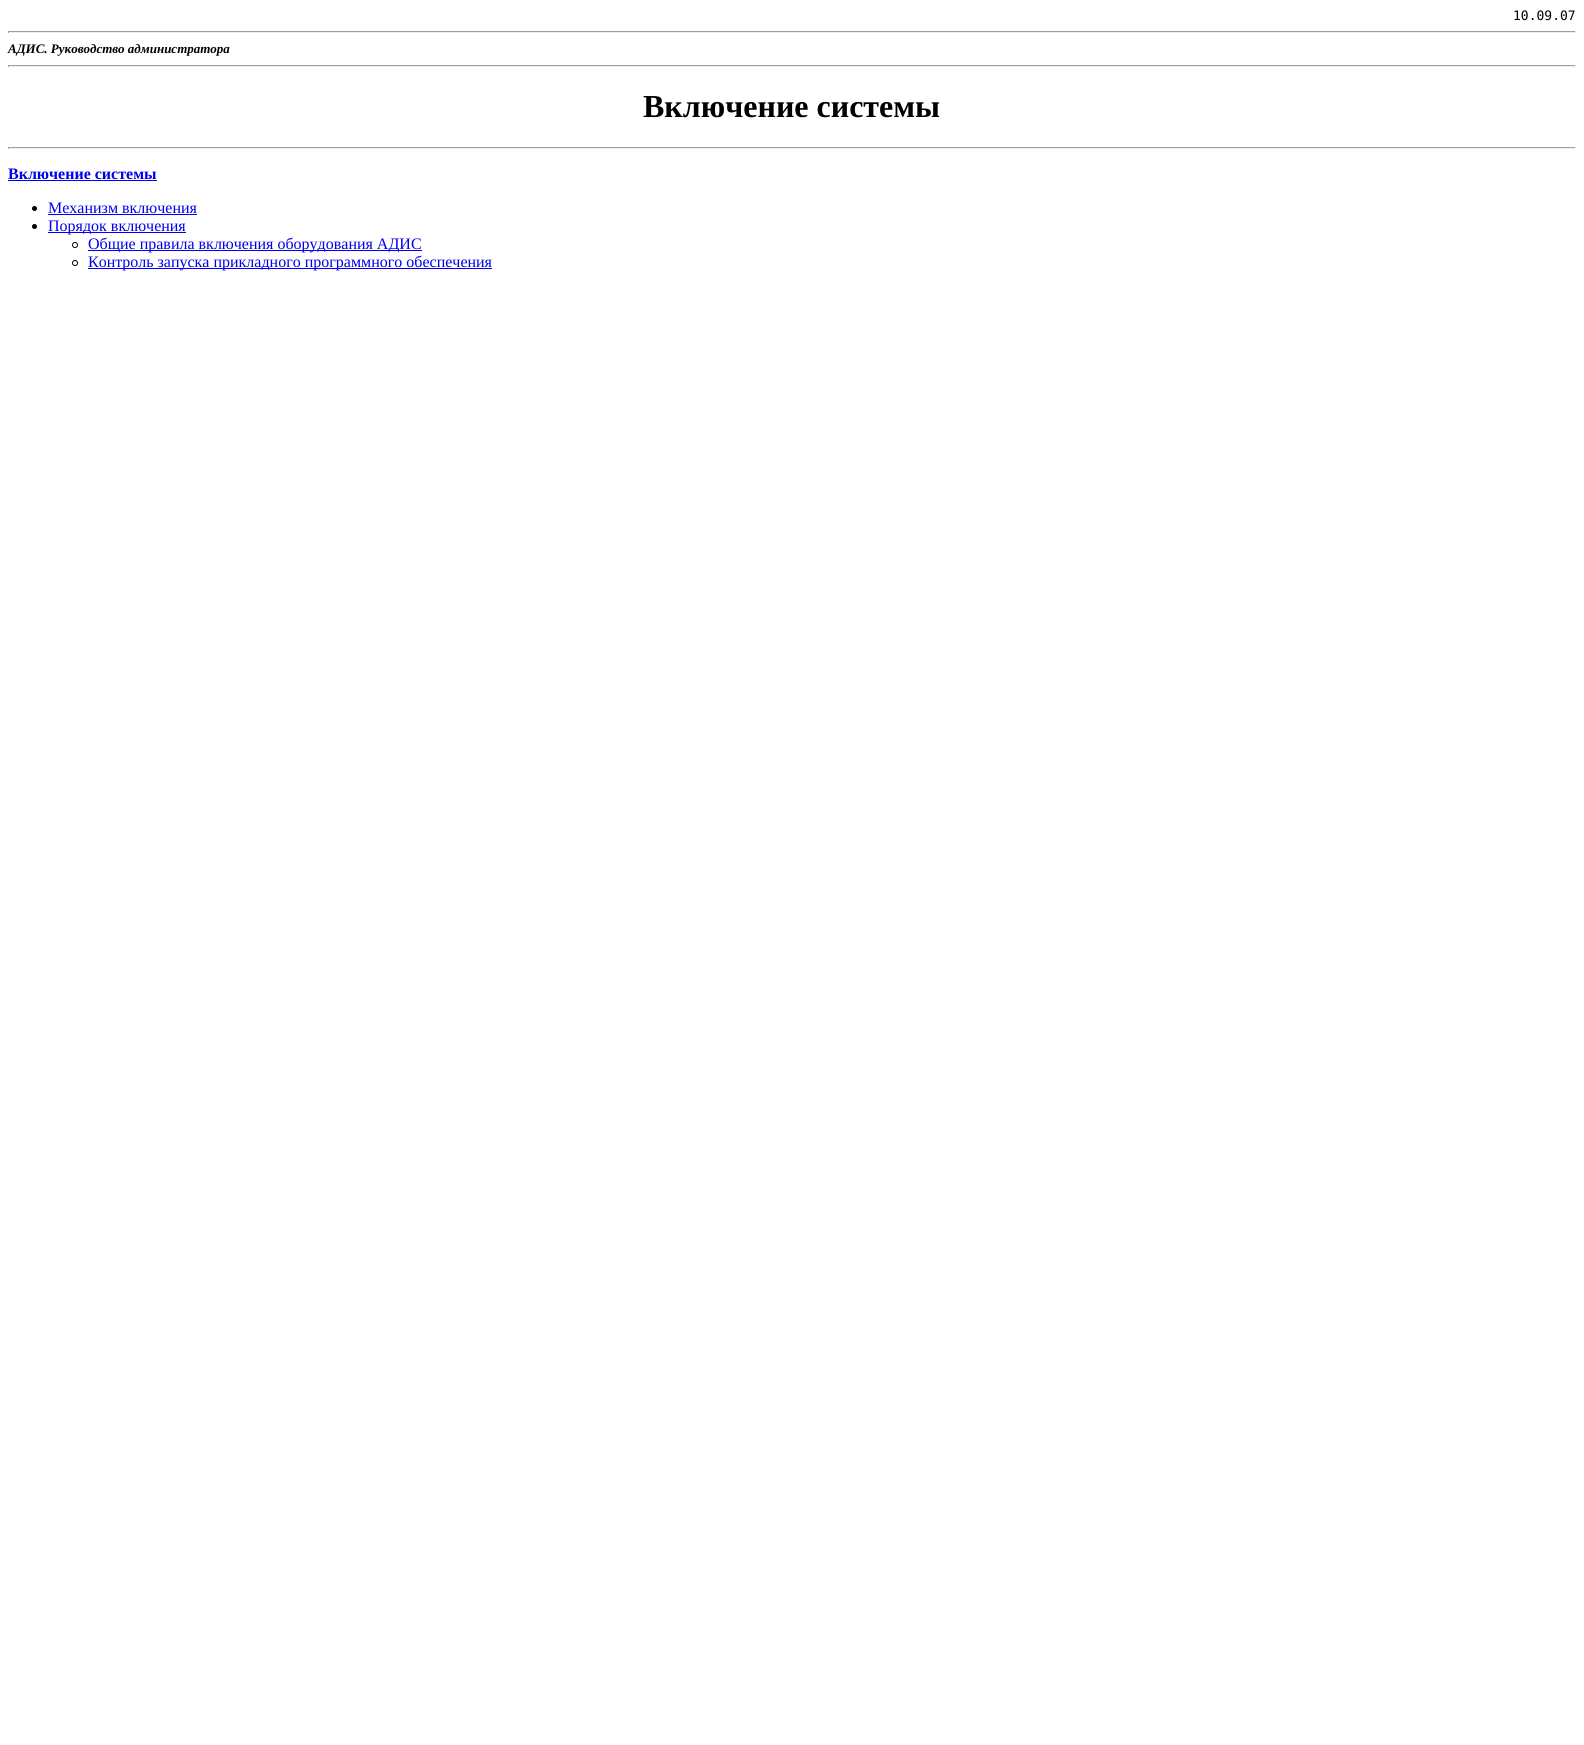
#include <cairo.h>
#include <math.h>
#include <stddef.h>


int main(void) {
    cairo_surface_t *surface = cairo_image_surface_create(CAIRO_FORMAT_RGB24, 1584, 1745);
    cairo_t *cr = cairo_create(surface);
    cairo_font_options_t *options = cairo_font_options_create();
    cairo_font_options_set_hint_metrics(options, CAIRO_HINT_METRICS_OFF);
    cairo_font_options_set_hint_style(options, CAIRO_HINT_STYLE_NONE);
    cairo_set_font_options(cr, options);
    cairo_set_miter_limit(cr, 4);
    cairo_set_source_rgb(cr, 1, 1, 1);
    cairo_paint(cr);
    cairo_select_font_face(cr, "DejaVu Sans Mono", CAIRO_FONT_SLANT_NORMAL, CAIRO_FONT_WEIGHT_NORMAL);
    cairo_set_font_size(cr, 13);
    cairo_set_source_rgb(cr, 0, 0, 0);
    cairo_move_to(cr, 1513, 20);
    cairo_show_text(cr, "10.09.07");
    cairo_set_source_rgb(cr, 0.624, 0.624, 0.624);
    cairo_rectangle(cr, 8, 31, 1568, 1);
    cairo_fill(cr);
    cairo_set_source_rgb(cr, 0.933, 0.933, 0.933);
    cairo_rectangle(cr, 1575, 31, 1, 2);
    cairo_fill(cr);
    cairo_rectangle(cr, 8, 32, 1568, 1);
    cairo_fill(cr);
    cairo_set_source_rgb(cr, 0.624, 0.624, 0.624);
    cairo_rectangle(cr, 8, 31, 1, 2);
    cairo_fill(cr);
    cairo_select_font_face(cr, "Liberation Serif", CAIRO_FONT_SLANT_ITALIC, CAIRO_FONT_WEIGHT_BOLD);
    cairo_set_source_rgb(cr, 0, 0, 0);
    cairo_move_to(cr, 8, 53);
    cairo_show_text(cr, "АДИС. Руководство администратора");
    cairo_set_source_rgb(cr, 0.624, 0.624, 0.624);
    cairo_rectangle(cr, 8, 65, 1568, 1);
    cairo_fill(cr);
    cairo_set_source_rgb(cr, 0.933, 0.933, 0.933);
    cairo_rectangle(cr, 1575, 65, 1, 2);
    cairo_fill(cr);
    cairo_rectangle(cr, 8, 66, 1568, 1);
    cairo_fill(cr);
    cairo_set_source_rgb(cr, 0.624, 0.624, 0.624);
    cairo_rectangle(cr, 8, 65, 1, 2);
    cairo_fill(cr);
    cairo_select_font_face(cr, "Liberation Serif", CAIRO_FONT_SLANT_NORMAL, CAIRO_FONT_WEIGHT_BOLD);
    cairo_set_font_size(cr, 32);
    cairo_set_source_rgb(cr, 0, 0, 0);
    cairo_move_to(cr, 643, 117);
    cairo_show_text(cr, "Включение системы");
    cairo_set_source_rgb(cr, 0.624, 0.624, 0.624);
    cairo_rectangle(cr, 8, 147, 1568, 1);
    cairo_fill(cr);
    cairo_set_source_rgb(cr, 0.933, 0.933, 0.933);
    cairo_rectangle(cr, 1575, 147, 1, 2);
    cairo_fill(cr);
    cairo_rectangle(cr, 8, 148, 1568, 1);
    cairo_fill(cr);
    cairo_set_source_rgb(cr, 0.624, 0.624, 0.624);
    cairo_rectangle(cr, 8, 147, 1, 2);
    cairo_fill(cr);
    cairo_set_font_size(cr, 16);
    cairo_set_source_rgb(cr, 0, 0, 0.933);
    cairo_move_to(cr, 8, 179);
    cairo_show_text(cr, "Включение системы");
    cairo_rectangle(cr, 8, 180, 149, 1);
    cairo_fill(cr);
    cairo_set_source_rgb(cr, 0, 0, 0);
    cairo_arc(cr, 34.5, 208.5, 2.5, 0, 2 * M_PI);
    cairo_fill(cr);
    cairo_select_font_face(cr, "Liberation Serif", CAIRO_FONT_SLANT_NORMAL, CAIRO_FONT_WEIGHT_NORMAL);
    cairo_set_source_rgb(cr, 0, 0, 0.933);
    cairo_move_to(cr, 48, 213);
    cairo_show_text(cr, "Механизм включения");
    cairo_rectangle(cr, 48, 214, 149, 1);
    cairo_fill(cr);
    cairo_set_source_rgb(cr, 0, 0, 0);
    cairo_arc(cr, 34.5, 226.5, 2.5, 0, 2 * M_PI);
    cairo_fill(cr);
    cairo_set_source_rgb(cr, 0, 0, 0.933);
    cairo_rectangle(cr, 48, 232, 138, 1);
    cairo_fill(cr);
    cairo_move_to(cr, 48, 231);
    cairo_show_text(cr, "Порядок включения");
    cairo_new_path(cr);
    cairo_arc(cr, 75, 245, 2.5, 0, 2 * M_PI);
    cairo_set_source_rgb(cr, 0, 0, 0);
    cairo_set_line_width(cr, 1);
    cairo_stroke(cr);
    cairo_set_source_rgb(cr, 0, 0, 0.933);
    cairo_rectangle(cr, 88, 250, 334, 1);
    cairo_fill(cr);
    cairo_move_to(cr, 88, 249);
    cairo_show_text(cr, "Общие правила включения оборудования АДИС");
    cairo_new_path(cr);
    cairo_arc(cr, 75, 263, 2.5, 0, 2 * M_PI);
    cairo_set_source_rgb(cr, 0, 0, 0);
    cairo_stroke(cr);
    cairo_set_source_rgb(cr, 0, 0, 0.933);
    cairo_rectangle(cr, 88, 268, 404, 1);
    cairo_fill(cr);
    cairo_move_to(cr, 88, 267);
    cairo_show_text(cr, "Контроль запуска прикладного программного обеспечения");
    cairo_surface_write_to_png(surface, "page.png");
    cairo_font_options_destroy(options);
    cairo_destroy(cr);
    cairo_surface_destroy(surface);
    return 0;
}
